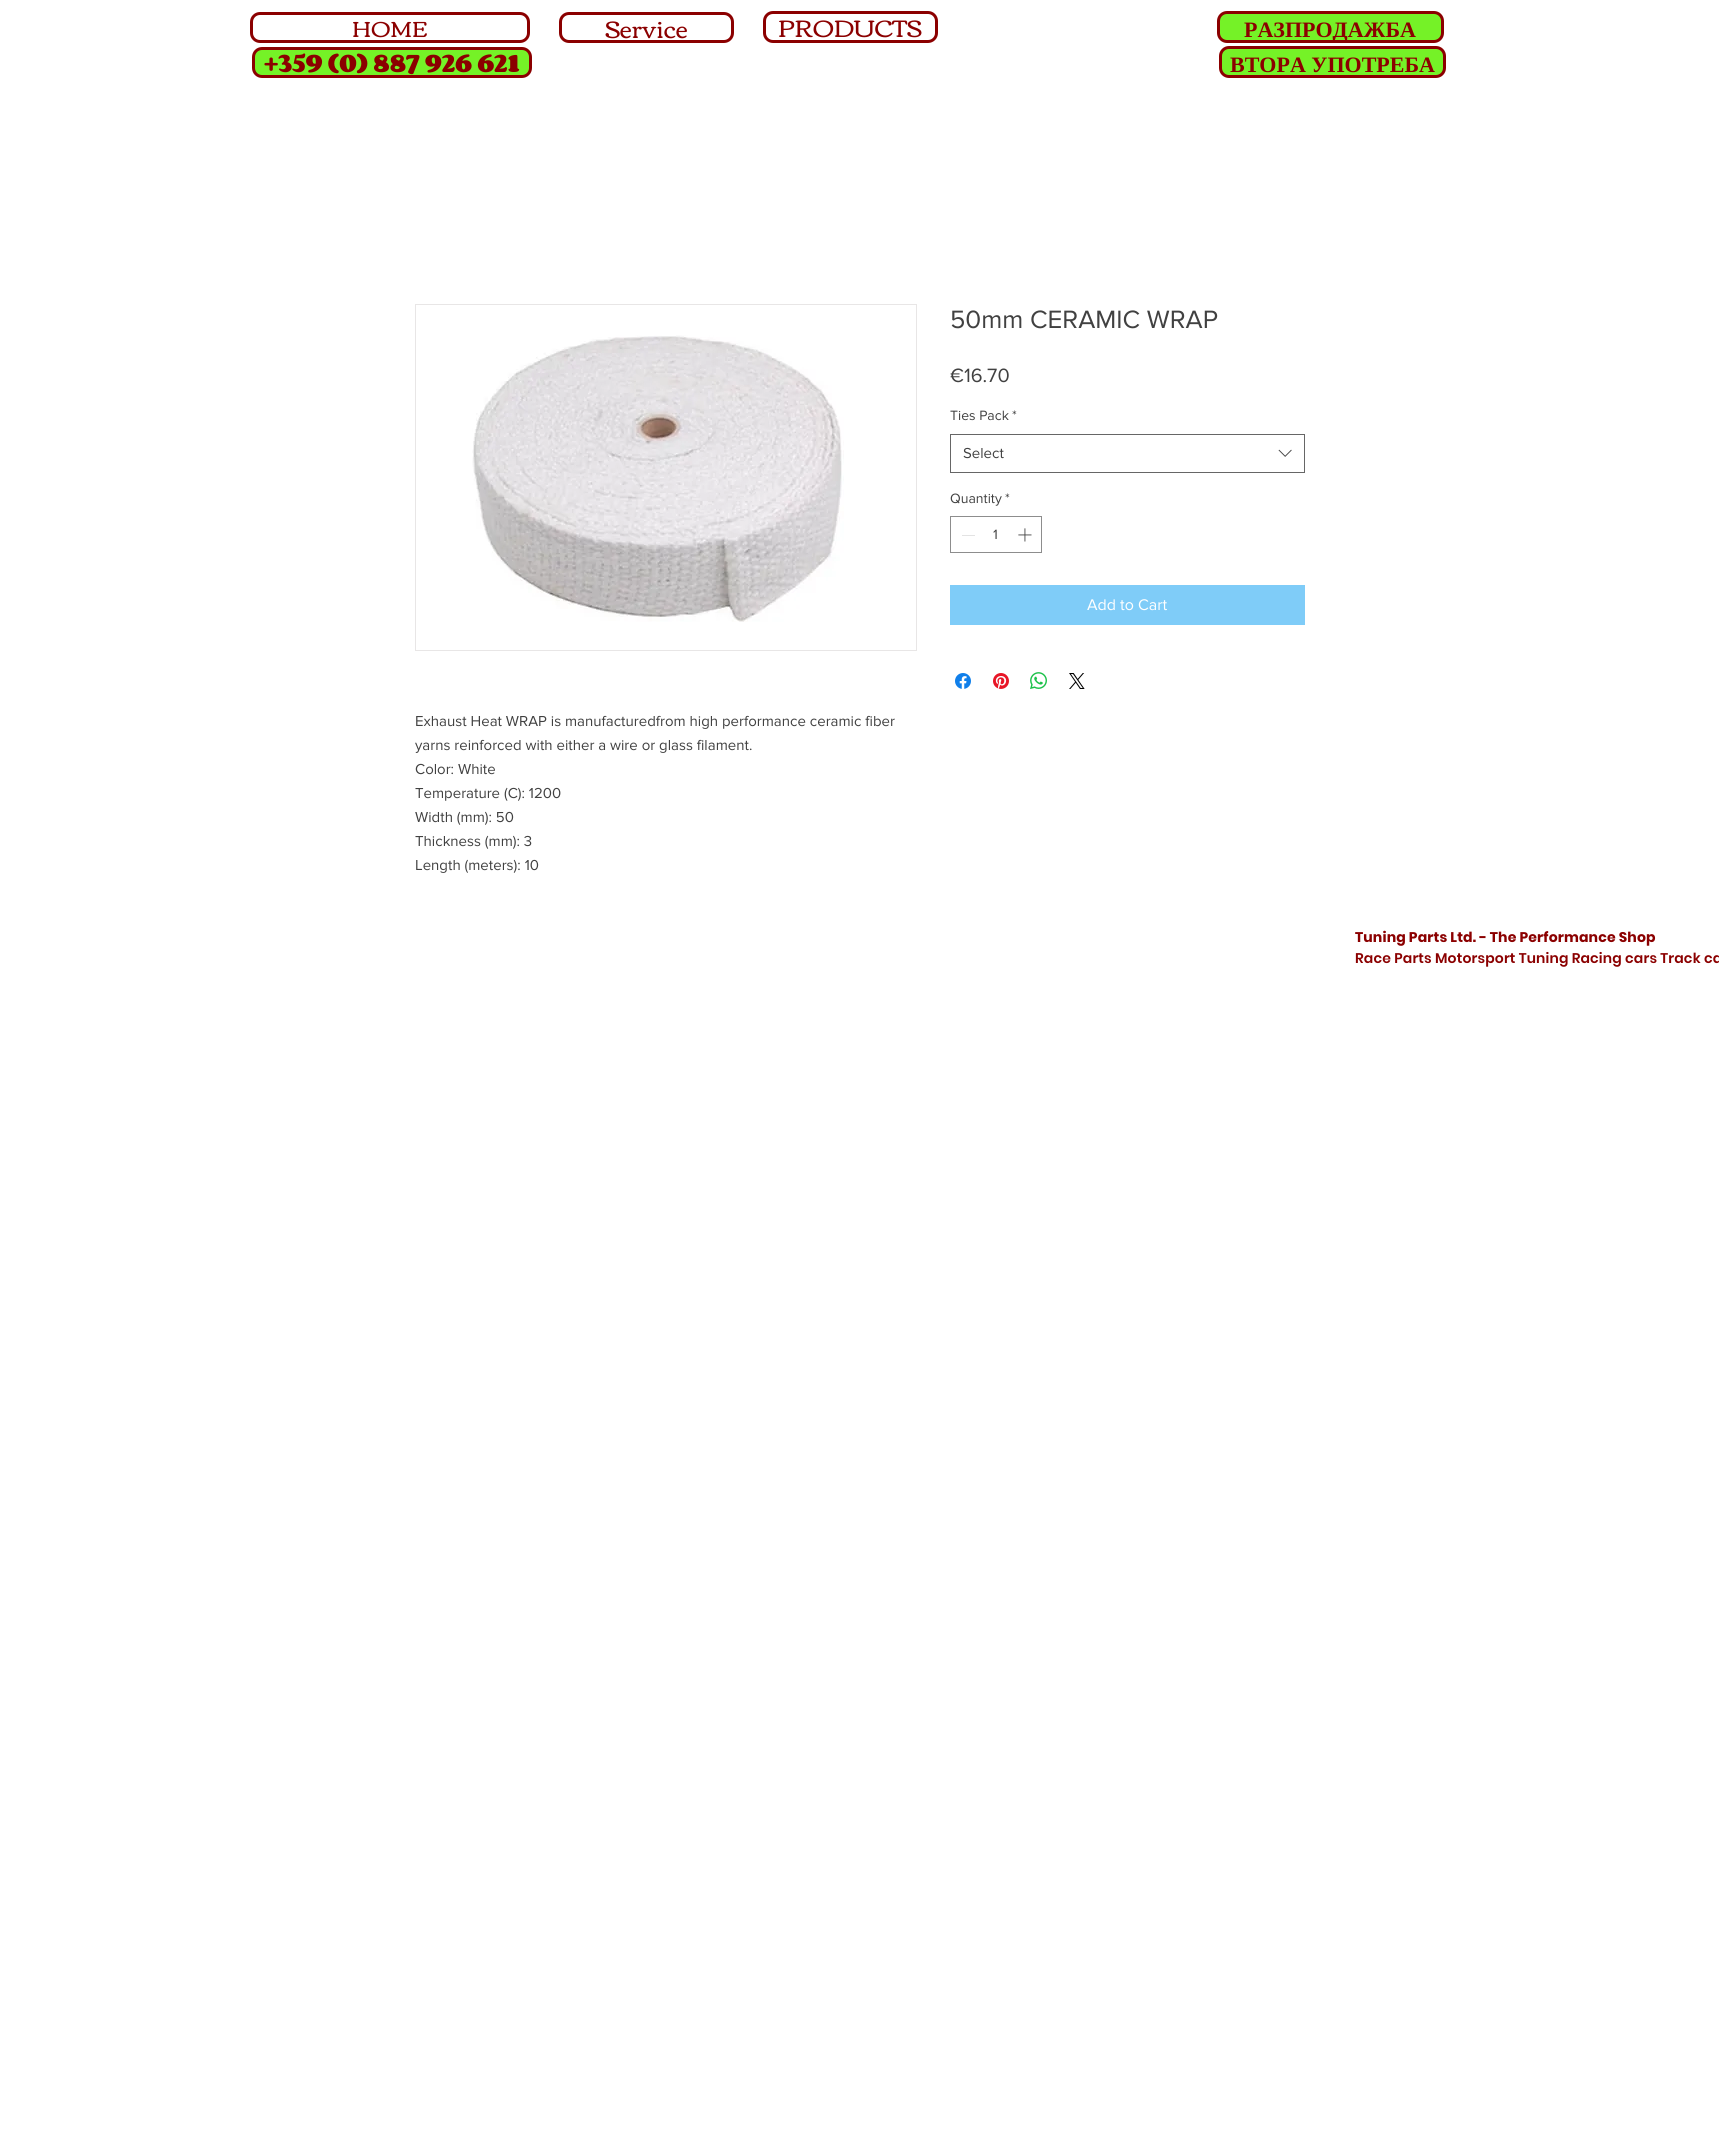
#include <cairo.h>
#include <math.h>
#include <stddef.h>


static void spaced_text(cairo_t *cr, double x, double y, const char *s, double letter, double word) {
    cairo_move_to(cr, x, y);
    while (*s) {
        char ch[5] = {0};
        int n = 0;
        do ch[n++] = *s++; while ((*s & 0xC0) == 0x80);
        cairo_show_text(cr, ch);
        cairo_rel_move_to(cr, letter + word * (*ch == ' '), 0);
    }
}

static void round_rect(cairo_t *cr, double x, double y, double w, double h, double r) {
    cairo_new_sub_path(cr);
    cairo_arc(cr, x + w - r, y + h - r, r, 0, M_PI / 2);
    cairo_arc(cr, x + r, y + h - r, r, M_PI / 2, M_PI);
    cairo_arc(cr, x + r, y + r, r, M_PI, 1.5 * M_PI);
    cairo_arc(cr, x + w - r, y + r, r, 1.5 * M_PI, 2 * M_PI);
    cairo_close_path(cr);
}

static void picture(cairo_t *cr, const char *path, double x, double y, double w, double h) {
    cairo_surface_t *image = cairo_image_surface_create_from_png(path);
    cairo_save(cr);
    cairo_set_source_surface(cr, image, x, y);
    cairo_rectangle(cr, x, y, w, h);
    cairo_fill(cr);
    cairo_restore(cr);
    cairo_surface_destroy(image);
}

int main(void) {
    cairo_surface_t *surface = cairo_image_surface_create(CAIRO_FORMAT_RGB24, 1719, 2136);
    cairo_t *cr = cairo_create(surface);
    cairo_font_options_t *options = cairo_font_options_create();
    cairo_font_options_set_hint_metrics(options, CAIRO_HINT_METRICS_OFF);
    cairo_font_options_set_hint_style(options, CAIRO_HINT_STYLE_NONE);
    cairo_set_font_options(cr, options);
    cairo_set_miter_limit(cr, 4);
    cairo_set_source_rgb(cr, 1, 1, 1);
    cairo_paint(cr);
    round_rect(cr, 251.5, 13.5, 277, 28, 8.5);
    cairo_set_source_rgb(cr, 0.545, 0, 0);
    cairo_set_line_width(cr, 3);
    cairo_stroke(cr);
    cairo_select_font_face(cr, "Corben", CAIRO_FONT_SLANT_NORMAL, CAIRO_FONT_WEIGHT_NORMAL);
    cairo_set_font_size(cr, 22);
    cairo_move_to(cr, 352, 37);
    cairo_show_text(cr, "HOME");
    round_rect(cr, 560.5, 13.5, 172, 28, 8.5);
    cairo_stroke(cr);
    cairo_set_font_size(cr, 24);
    cairo_move_to(cr, 605, 38);
    cairo_show_text(cr, "Service");
    round_rect(cr, 764.5, 12.5, 172, 29, 8.5);
    cairo_stroke(cr);
    cairo_move_to(cr, 778, 37);
    cairo_show_text(cr, "PRODUCTS");
    cairo_set_source_rgb(cr, 0.459, 0.949, 0.153);
    round_rect(cr, 1218.5, 12.5, 224, 29, 8.5);
    cairo_fill_preserve(cr);
    cairo_set_source_rgb(cr, 0.545, 0, 0);
    cairo_stroke(cr);
    cairo_select_font_face(cr, "Liberation Serif", CAIRO_FONT_SLANT_NORMAL, CAIRO_FONT_WEIGHT_BOLD);
    cairo_set_font_size(cr, 22);
    cairo_move_to(cr, 1244, 37);
    cairo_show_text(cr, "РАЗПРОДАЖБА");
    cairo_set_source_rgb(cr, 0.459, 0.949, 0.153);
    round_rect(cr, 253.5, 48.5, 277, 28, 8.5);
    cairo_fill_preserve(cr);
    cairo_set_source_rgb(cr, 0.545, 0, 0);
    cairo_stroke(cr);
    cairo_select_font_face(cr, "Corben", CAIRO_FONT_SLANT_NORMAL, CAIRO_FONT_WEIGHT_BOLD);
    cairo_move_to(cr, 264, 72);
    cairo_show_text(cr, "+359 (0) 887 926 621");
    cairo_set_source_rgb(cr, 0.459, 0.949, 0.153);
    round_rect(cr, 1220.5, 47.5, 224, 29, 8.5);
    cairo_fill_preserve(cr);
    cairo_set_source_rgb(cr, 0.545, 0, 0);
    cairo_stroke(cr);
    cairo_select_font_face(cr, "Liberation Serif", CAIRO_FONT_SLANT_NORMAL, CAIRO_FONT_WEIGHT_BOLD);
    cairo_move_to(cr, 1230, 72);
    cairo_show_text(cr, "ВТОРА УПОТРЕБА");
    cairo_select_font_face(cr, "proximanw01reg", CAIRO_FONT_SLANT_NORMAL, CAIRO_FONT_WEIGHT_NORMAL);
    cairo_set_font_size(cr, 26);
    cairo_set_source_rgb(cr, 0.255, 0.255, 0.255);
    cairo_move_to(cr, 950, 328);
    cairo_show_text(cr, "50mm CERAMIC WRAP");
    cairo_set_font_size(cr, 20);
    cairo_move_to(cr, 950, 382);
    cairo_show_text(cr, "€16.70");
    cairo_set_font_size(cr, 14);
    cairo_move_to(cr, 950, 420);
    cairo_show_text(cr, "Ties Pack");
    cairo_move_to(cr, 1012, 420);
    cairo_show_text(cr, "*");
    cairo_rectangle(cr, 950.5, 434.5, 354, 38);
    cairo_set_source_rgb(cr, 0.4, 0.4, 0.4);
    cairo_set_line_width(cr, 1);
    cairo_stroke(cr);
    cairo_set_font_size(cr, 15);
    cairo_set_source_rgb(cr, 0.255, 0.255, 0.255);
    cairo_move_to(cr, 963, 458);
    cairo_show_text(cr, "Select");
    picture(cr, "img1.png", 1278, 449, 14, 8);
    cairo_set_font_size(cr, 14);
    cairo_move_to(cr, 950, 503);
    cairo_show_text(cr, "Quantity");
    cairo_move_to(cr, 1005, 503);
    cairo_show_text(cr, "*");
    cairo_rectangle(cr, 950.5, 516.5, 91, 36);
    cairo_set_source_rgb(cr, 0.553, 0.553, 0.553);
    cairo_stroke(cr);
    cairo_set_source_rgb(cr, 0.89, 0.89, 0.89);
    cairo_rectangle(cr, 962, 535, 13, 1);
    cairo_fill(cr);
    cairo_set_source_rgb(cr, 0.255, 0.255, 0.255);
    cairo_move_to(cr, 993, 539);
    cairo_show_text(cr, "1");
    picture(cr, "img2.png", 1018, 528, 14, 14);
    cairo_set_source_rgb(cr, 0.498, 0.8, 0.969);
    cairo_rectangle(cr, 950, 585, 355, 40);
    cairo_fill(cr);
    cairo_set_font_size(cr, 16);
    cairo_set_source_rgb(cr, 1, 1, 1);
    cairo_move_to(cr, 1087, 610);
    cairo_show_text(cr, "Add to Cart");
    picture(cr, "img3.png", 955, 673, 16, 16);
    picture(cr, "img4.png", 993, 673, 16, 16);
    picture(cr, "img5.png", 1030, 672, 17, 17);
    picture(cr, "img6.png", 1069, 673, 16, 16);
    cairo_rectangle(cr, 415.5, 304.5, 501, 346);
    cairo_set_source_rgb(cr, 0.91, 0.902, 0.902);
    cairo_stroke(cr);
    picture(cr, "img7.png", 472, 335, 372, 287);
    cairo_set_font_size(cr, 15);
    cairo_set_source_rgb(cr, 0.255, 0.255, 0.255);
    cairo_move_to(cr, 415, 726);
    cairo_show_text(cr, "Exhaust Heat WRAP is manufacturedfrom high performance ceramic fiber");
    cairo_move_to(cr, 415, 750);
    cairo_show_text(cr, "yarns reinforced with either a wire or glass filament.");
    cairo_move_to(cr, 415, 774);
    cairo_show_text(cr, "Color: White");
    cairo_move_to(cr, 415, 798);
    cairo_show_text(cr, "Temperature (C): 1200");
    cairo_move_to(cr, 415, 822);
    cairo_show_text(cr, "Width (mm): 50");
    cairo_move_to(cr, 415, 846);
    cairo_show_text(cr, "Thickness (mm): 3");
    cairo_move_to(cr, 415, 870);
    cairo_show_text(cr, "Length (meters): 10");
    cairo_select_font_face(cr, "Poppins", CAIRO_FONT_SLANT_NORMAL, CAIRO_FONT_WEIGHT_BOLD);
    cairo_set_font_size(cr, 14);
    cairo_set_source_rgb(cr, 0.545, 0, 0);
    spaced_text(cr, 1355, 942, "Tuning Parts Ltd. - The Performance Shop", 0.15, 0);
    cairo_select_font_face(cr, "Poppins SemiBold", CAIRO_FONT_SLANT_NORMAL, CAIRO_FONT_WEIGHT_NORMAL);
    spaced_text(cr, 1355, 963, "Race Parts Motorsport Tuning Racing cars Track ca", 0.15, 0);
    cairo_surface_write_to_png(surface, "page.png");
    cairo_font_options_destroy(options);
    cairo_destroy(cr);
    cairo_surface_destroy(surface);
    return 0;
}
